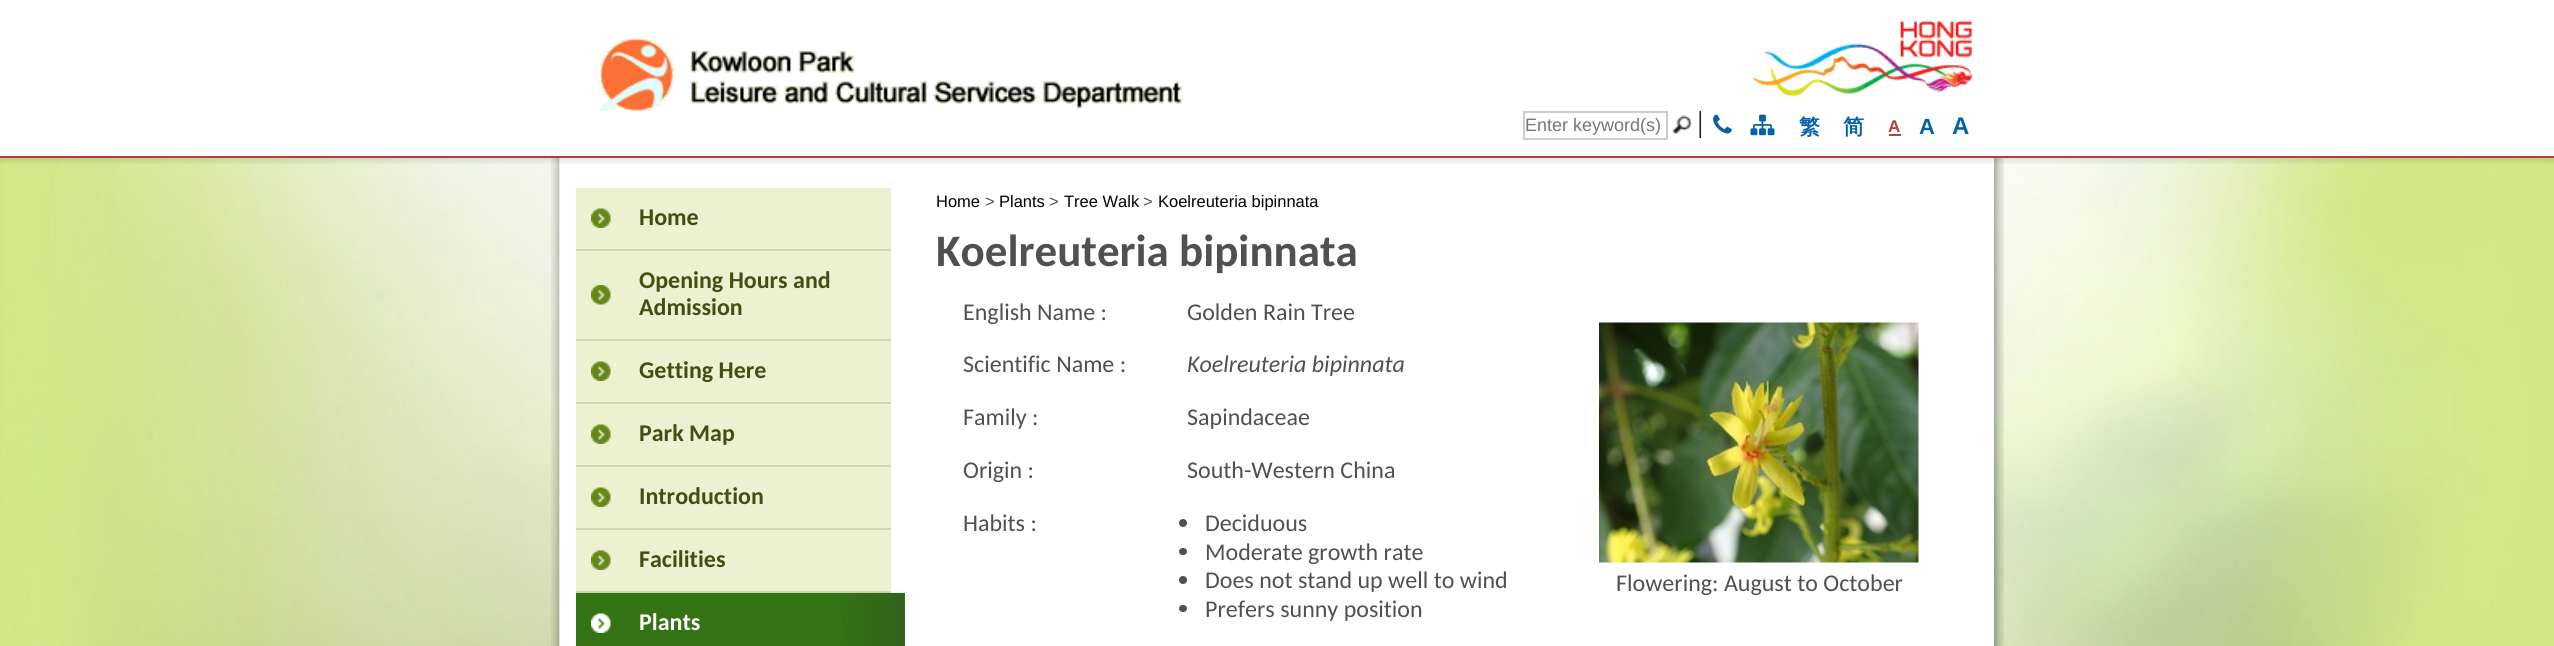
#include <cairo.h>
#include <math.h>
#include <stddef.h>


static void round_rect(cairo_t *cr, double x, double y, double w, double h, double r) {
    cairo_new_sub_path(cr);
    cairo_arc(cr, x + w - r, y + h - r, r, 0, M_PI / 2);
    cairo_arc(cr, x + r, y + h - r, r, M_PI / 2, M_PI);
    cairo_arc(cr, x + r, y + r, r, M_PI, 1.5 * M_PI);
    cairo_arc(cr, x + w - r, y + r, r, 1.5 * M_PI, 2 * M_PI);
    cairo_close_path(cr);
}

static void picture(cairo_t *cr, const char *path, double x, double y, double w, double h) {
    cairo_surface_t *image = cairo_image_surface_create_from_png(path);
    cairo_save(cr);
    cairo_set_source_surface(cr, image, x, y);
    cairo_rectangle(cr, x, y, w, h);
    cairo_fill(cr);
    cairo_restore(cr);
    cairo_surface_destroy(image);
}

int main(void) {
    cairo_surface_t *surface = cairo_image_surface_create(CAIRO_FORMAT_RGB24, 2554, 646);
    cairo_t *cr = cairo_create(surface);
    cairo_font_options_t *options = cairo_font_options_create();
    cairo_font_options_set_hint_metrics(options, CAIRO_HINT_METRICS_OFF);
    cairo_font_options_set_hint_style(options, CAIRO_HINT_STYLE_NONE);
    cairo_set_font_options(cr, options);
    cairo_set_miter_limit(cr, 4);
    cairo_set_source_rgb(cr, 0.82, 0.906, 0.522);
    cairo_paint(cr);
    picture(cr, "img1.png", 2, 158, 2547, 488);
    cairo_set_source_rgb(cr, 1, 1, 1);
    cairo_rectangle(cr, 0, 0, 2554, 156);
    cairo_fill(cr);
    cairo_set_source_rgb(cr, 0.69, 0.263, 0.243);
    cairo_rectangle(cr, 0, 156, 2554, 2);
    cairo_fill(cr);
    picture(cr, "img2.png", 595, 36, 588, 75);
    picture(cr, "img3.png", 1751, 20, 222, 77);
    cairo_rectangle(cr, 1524, 112, 143, 27);
    cairo_set_source_rgb(cr, 0.8, 0.8, 0.8);
    cairo_stroke(cr);
    cairo_select_font_face(cr, "Liberation Sans", CAIRO_FONT_SLANT_NORMAL, CAIRO_FONT_WEIGHT_NORMAL);
    cairo_set_font_size(cr, 18);
    cairo_set_source_rgb(cr, 0.463, 0.463, 0.463);
    cairo_move_to(cr, 1525, 131);
    cairo_show_text(cr, "Enter keyword(s)");
    picture(cr, "img4.png", 1672, 111, 29, 27);
    picture(cr, "img5.png", 1713, 114, 19, 20);
    picture(cr, "img6.png", 1750, 114, 25, 22);
    cairo_select_font_face(cr, "WenQuanYi Zen Hei", CAIRO_FONT_SLANT_NORMAL, CAIRO_FONT_WEIGHT_BOLD);
    cairo_set_font_size(cr, 21);
    cairo_set_source_rgb(cr, 0.027, 0.384, 0.659);
    cairo_move_to(cr, 1799, 134);
    cairo_show_text(cr, "繁");
    cairo_move_to(cr, 1843, 134);
    cairo_show_text(cr, "简");
    cairo_select_font_face(cr, "Liberation Sans", CAIRO_FONT_SLANT_NORMAL, CAIRO_FONT_WEIGHT_BOLD);
    cairo_set_font_size(cr, 17);
    cairo_set_source_rgb(cr, 0.69, 0.263, 0.243);
    cairo_move_to(cr, 1888, 132);
    cairo_show_text(cr, "A");
    cairo_rectangle(cr, 1889, 134, 12, 2);
    cairo_fill(cr);
    cairo_set_font_size(cr, 22);
    cairo_set_source_rgb(cr, 0.027, 0.384, 0.659);
    cairo_move_to(cr, 1919, 134);
    cairo_show_text(cr, "A");
    cairo_set_font_size(cr, 24);
    cairo_move_to(cr, 1952, 134);
    cairo_show_text(cr, "A");
    picture(cr, "img8.png", 551, 158, 1453, 488);
    picture(cr, "img9.png", 551, 158, 1453, 488);
    cairo_set_source_rgb(cr, 1, 1, 1);
    cairo_rectangle(cr, 1993, 158, 1, 488);
    cairo_fill(cr);
    picture(cr, "img7.png", 0, 157, 2554, 7);
    cairo_set_source_rgb(cr, 0.922, 0.949, 0.82);
    cairo_rectangle(cr, 576, 188, 315, 403);
    cairo_fill(cr);
    cairo_set_source_rgb(cr, 0.8, 0.859, 0.678);
    cairo_rectangle(cr, 576, 249, 315, 2);
    cairo_fill(cr);
    picture(cr, "img10.png", 591, 208, 20, 20);
    cairo_select_font_face(cr, "Carlito", CAIRO_FONT_SLANT_NORMAL, CAIRO_FONT_WEIGHT_BOLD);
    cairo_set_source_rgb(cr, 0.251, 0.31, 0.078);
    cairo_move_to(cr, 639, 225);
    cairo_show_text(cr, "Home");
    cairo_set_source_rgb(cr, 0.8, 0.859, 0.678);
    cairo_rectangle(cr, 576, 339, 315, 2);
    cairo_fill(cr);
    picture(cr, "img11.png", 591, 285, 20, 20);
    cairo_set_source_rgb(cr, 0.251, 0.31, 0.078);
    cairo_move_to(cr, 639, 288);
    cairo_show_text(cr, "Opening Hours and");
    cairo_move_to(cr, 639, 315);
    cairo_show_text(cr, "Admission");
    cairo_set_source_rgb(cr, 0.8, 0.859, 0.678);
    cairo_rectangle(cr, 576, 402, 315, 2);
    cairo_fill(cr);
    picture(cr, "img10.png", 591, 361, 20, 20);
    cairo_set_source_rgb(cr, 0.251, 0.31, 0.078);
    cairo_move_to(cr, 639, 378);
    cairo_show_text(cr, "Getting Here");
    cairo_set_source_rgb(cr, 0.8, 0.859, 0.678);
    cairo_rectangle(cr, 576, 465, 315, 2);
    cairo_fill(cr);
    picture(cr, "img10.png", 591, 424, 20, 20);
    cairo_set_source_rgb(cr, 0.251, 0.31, 0.078);
    cairo_move_to(cr, 639, 441);
    cairo_show_text(cr, "Park Map");
    cairo_set_source_rgb(cr, 0.8, 0.859, 0.678);
    cairo_rectangle(cr, 576, 528, 315, 2);
    cairo_fill(cr);
    picture(cr, "img10.png", 591, 487, 20, 20);
    cairo_set_source_rgb(cr, 0.251, 0.31, 0.078);
    cairo_move_to(cr, 639, 504);
    cairo_show_text(cr, "Introduction");
    cairo_set_source_rgb(cr, 0.8, 0.859, 0.678);
    cairo_rectangle(cr, 576, 591, 315, 2);
    cairo_fill(cr);
    picture(cr, "img10.png", 591, 550, 20, 20);
    cairo_set_source_rgb(cr, 0.251, 0.31, 0.078);
    cairo_move_to(cr, 639, 567);
    cairo_show_text(cr, "Facilities");
    cairo_set_source_rgb(cr, 0.2, 0.451, 0.082);
    cairo_rectangle(cr, 576, 593, 329, 53);
    cairo_fill(cr);
    picture(cr, "img12.png", 591, 613, 20, 20);
    cairo_set_source_rgb(cr, 1, 1, 1);
    cairo_move_to(cr, 639, 630);
    cairo_show_text(cr, "Plants");
    picture(cr, "img13.png", 843, 592, 62, 54);
    cairo_select_font_face(cr, "Liberation Sans", CAIRO_FONT_SLANT_NORMAL, CAIRO_FONT_WEIGHT_NORMAL);
    cairo_set_font_size(cr, 16.5);
    cairo_set_source_rgb(cr, 0, 0, 0);
    cairo_move_to(cr, 936, 207);
    cairo_show_text(cr, "Home");
    cairo_set_source_rgb(cr, 0.314, 0.314, 0.314);
    cairo_move_to(cr, 985, 207);
    cairo_show_text(cr, ">");
    cairo_set_source_rgb(cr, 0, 0, 0);
    cairo_move_to(cr, 999, 207);
    cairo_show_text(cr, "Plants");
    cairo_set_source_rgb(cr, 0.314, 0.314, 0.314);
    cairo_move_to(cr, 1049, 207);
    cairo_show_text(cr, ">");
    cairo_set_source_rgb(cr, 0, 0, 0);
    cairo_move_to(cr, 1064, 207);
    cairo_show_text(cr, "Tree Walk");
    cairo_set_source_rgb(cr, 0.314, 0.314, 0.314);
    cairo_move_to(cr, 1143, 207);
    cairo_show_text(cr, ">");
    cairo_set_source_rgb(cr, 0, 0, 0);
    cairo_move_to(cr, 1158, 207);
    cairo_show_text(cr, "Koelreuteria bipinnata");
    cairo_select_font_face(cr, "Carlito", CAIRO_FONT_SLANT_NORMAL, CAIRO_FONT_WEIGHT_BOLD);
    cairo_set_font_size(cr, 45);
    cairo_set_source_rgb(cr, 0.314, 0.314, 0.314);
    cairo_move_to(cr, 936, 266);
    cairo_show_text(cr, "Koelreuteria bipinnata");
    cairo_select_font_face(cr, "Carlito", CAIRO_FONT_SLANT_NORMAL, CAIRO_FONT_WEIGHT_NORMAL);
    cairo_set_font_size(cr, 24);
    cairo_move_to(cr, 963, 320);
    cairo_show_text(cr, "English Name :");
    cairo_move_to(cr, 1187, 320);
    cairo_show_text(cr, "Golden Rain Tree");
    picture(cr, "img14.png", 1599, 322, 320, 241);
    cairo_move_to(cr, 1616, 591);
    cairo_show_text(cr, "Flowering: August to October");
    cairo_move_to(cr, 963, 372);
    cairo_show_text(cr, "Scientific Name :");
    cairo_select_font_face(cr, "Carlito", CAIRO_FONT_SLANT_ITALIC, CAIRO_FONT_WEIGHT_NORMAL);
    cairo_move_to(cr, 1187, 372);
    cairo_show_text(cr, "Koelreuteria bipinnata");
    cairo_select_font_face(cr, "Carlito", CAIRO_FONT_SLANT_NORMAL, CAIRO_FONT_WEIGHT_NORMAL);
    cairo_move_to(cr, 963, 425);
    cairo_show_text(cr, "Family :");
    cairo_move_to(cr, 1187, 425);
    cairo_show_text(cr, "Sapindaceae");
    cairo_move_to(cr, 963, 478);
    cairo_show_text(cr, "Origin :");
    cairo_move_to(cr, 1187, 478);
    cairo_show_text(cr, "South-Western China");
    cairo_move_to(cr, 963, 531);
    cairo_show_text(cr, "Habits :");
    cairo_new_path(cr);
    cairo_arc(cr, 1183, 523, 4, 0, 2 * M_PI);
    cairo_fill(cr);
    cairo_move_to(cr, 1205, 531);
    cairo_show_text(cr, "Deciduous");
    round_rect(cr, 1179, 548, 8, 7, 3.5);
    cairo_fill(cr);
    cairo_move_to(cr, 1205, 560);
    cairo_show_text(cr, "Moderate growth rate");
    cairo_new_path(cr);
    cairo_arc(cr, 1183, 580, 4, 0, 2 * M_PI);
    cairo_fill(cr);
    cairo_move_to(cr, 1205, 588);
    cairo_show_text(cr, "Does not stand up well to wind");
    round_rect(cr, 1179, 605, 8, 7, 3.5);
    cairo_fill(cr);
    cairo_move_to(cr, 1205, 617);
    cairo_show_text(cr, "Prefers sunny position");
    cairo_surface_write_to_png(surface, "page.png");
    cairo_font_options_destroy(options);
    cairo_destroy(cr);
    cairo_surface_destroy(surface);
    return 0;
}
